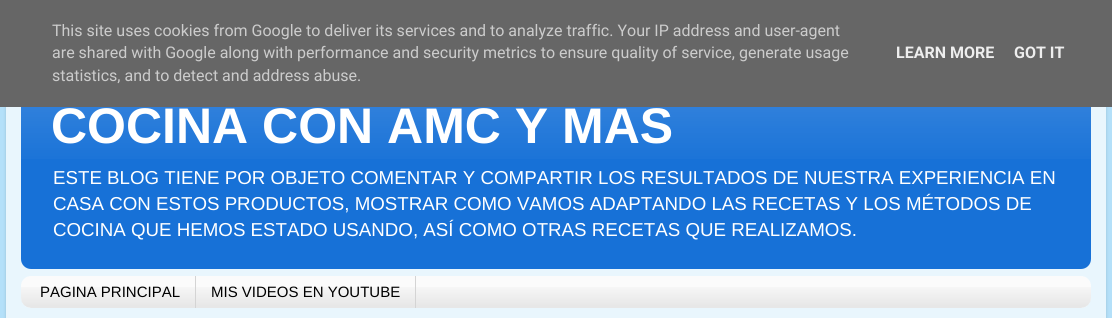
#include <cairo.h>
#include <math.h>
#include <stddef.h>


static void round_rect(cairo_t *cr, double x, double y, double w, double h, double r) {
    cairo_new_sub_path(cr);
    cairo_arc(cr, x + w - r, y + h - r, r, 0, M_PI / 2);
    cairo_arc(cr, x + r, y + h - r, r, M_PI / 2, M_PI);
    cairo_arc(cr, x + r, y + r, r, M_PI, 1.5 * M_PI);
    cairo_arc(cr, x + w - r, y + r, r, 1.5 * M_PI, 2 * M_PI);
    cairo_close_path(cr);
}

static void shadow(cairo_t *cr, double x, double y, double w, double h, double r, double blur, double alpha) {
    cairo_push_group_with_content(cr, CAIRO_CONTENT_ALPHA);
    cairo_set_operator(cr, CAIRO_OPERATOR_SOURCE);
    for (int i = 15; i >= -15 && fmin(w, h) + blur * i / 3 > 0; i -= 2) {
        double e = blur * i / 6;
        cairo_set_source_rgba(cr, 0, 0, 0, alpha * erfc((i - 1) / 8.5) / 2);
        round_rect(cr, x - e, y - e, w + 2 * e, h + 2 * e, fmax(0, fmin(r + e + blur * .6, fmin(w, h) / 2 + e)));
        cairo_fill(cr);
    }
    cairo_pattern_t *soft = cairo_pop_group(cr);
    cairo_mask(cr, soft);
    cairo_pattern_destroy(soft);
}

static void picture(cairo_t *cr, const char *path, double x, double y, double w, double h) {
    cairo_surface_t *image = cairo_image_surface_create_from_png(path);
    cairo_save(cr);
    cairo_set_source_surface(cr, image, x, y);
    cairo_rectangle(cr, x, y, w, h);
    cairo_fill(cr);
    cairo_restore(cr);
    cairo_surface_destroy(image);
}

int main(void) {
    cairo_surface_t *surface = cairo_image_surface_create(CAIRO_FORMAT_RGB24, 1112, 318);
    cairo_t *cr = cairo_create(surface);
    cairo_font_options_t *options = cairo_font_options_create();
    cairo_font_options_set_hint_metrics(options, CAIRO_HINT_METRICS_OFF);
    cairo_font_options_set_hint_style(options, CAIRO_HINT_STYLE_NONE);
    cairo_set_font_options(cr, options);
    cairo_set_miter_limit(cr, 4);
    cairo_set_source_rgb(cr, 0.706, 0.878, 0.973);
    cairo_paint(cr);
    cairo_save(cr);
    cairo_set_fill_rule(cr, CAIRO_FILL_RULE_EVEN_ODD);
    cairo_new_path(cr);
    cairo_move_to(cr, 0, 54);
    cairo_line_to(cr, 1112, 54);
    cairo_line_to(cr, 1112, 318);
    cairo_line_to(cr, 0, 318);
    cairo_close_path(cr);
    cairo_move_to(cr, 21, 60);
    cairo_line_to(cr, 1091, 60);
    cairo_curve_to(cr, 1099.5, 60, 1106, 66.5, 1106, 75);
    cairo_line_to(cr, 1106, 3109);
    cairo_curve_to(cr, 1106, 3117.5, 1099.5, 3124, 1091, 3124);
    cairo_line_to(cr, 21, 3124);
    cairo_curve_to(cr, 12.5, 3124, 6, 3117.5, 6, 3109);
    cairo_line_to(cr, 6, 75);
    cairo_curve_to(cr, 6, 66.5, 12.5, 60, 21, 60);
    cairo_close_path(cr);
    cairo_clip(cr);
    cairo_set_source_rgb(cr, 0, 0, 0);
    shadow(cr, 6, 60, 1100, 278, 15, 1.5, 0.15);
    cairo_restore(cr);
    picture(cr, "img1.png", 6, 107, 1100, 211);
    cairo_set_source_rgb(cr, 0.09, 0.443, 0.843);
    round_rect(cr, 21, 75, 1070, 194, 10);
    cairo_fill(cr);
    picture(cr, "img2.png", 21, 107, 1070, 52);
    cairo_select_font_face(cr, "Liberation Sans", CAIRO_FONT_SLANT_NORMAL, CAIRO_FONT_WEIGHT_BOLD);
    cairo_set_font_size(cr, 50);
    cairo_set_source_rgb(cr, 1, 1, 1);
    cairo_move_to(cr, 51, 143);
    cairo_show_text(cr, "COCINA CON AMC Y MÁS");
    cairo_set_source_rgb(cr, 0.4, 0.4, 0.4);
    cairo_rectangle(cr, 0, 0, 1112, 107);
    cairo_fill(cr);
    cairo_select_font_face(cr, "Roboto", CAIRO_FONT_SLANT_NORMAL, CAIRO_FONT_WEIGHT_NORMAL);
    cairo_set_font_size(cr, 16);
    cairo_set_source_rgb(cr, 0.8, 0.8, 0.8);
    cairo_move_to(cr, 52, 36);
    cairo_show_text(cr, "This site uses cookies from Google to deliver its services and to analyze traffic. Your IP address and user-agent");
    cairo_move_to(cr, 52, 58);
    cairo_show_text(cr, "are shared with Google along with performance and security metrics to ensure quality of service, generate usage");
    cairo_move_to(cr, 52, 81);
    cairo_show_text(cr, "statistics, and to detect and address abuse.");
    cairo_select_font_face(cr, "Roboto", CAIRO_FONT_SLANT_NORMAL, CAIRO_FONT_WEIGHT_BOLD);
    cairo_set_source_rgb(cr, 0.933, 0.933, 0.933);
    cairo_move_to(cr, 896, 58);
    cairo_show_text(cr, "LEARN MORE");
    cairo_move_to(cr, 1014, 58);
    cairo_show_text(cr, "GOT IT");
    cairo_select_font_face(cr, "Liberation Sans", CAIRO_FONT_SLANT_NORMAL, CAIRO_FONT_WEIGHT_NORMAL);
    cairo_set_font_size(cr, 18.72);
    cairo_set_source_rgb(cr, 1, 1, 1);
    cairo_move_to(cr, 53, 184);
    cairo_show_text(cr, "ESTE BLOG TIENE POR OBJETO COMENTAR Y COMPARTIR LOS RESULTADOS DE NUESTRA EXPERIENCIA EN");
    cairo_move_to(cr, 53, 210);
    cairo_show_text(cr, "CASA CON ESTOS PRODUCTOS, MOSTRAR COMO VAMOS ADAPTANDO LAS RECETAS Y LOS MÉTODOS DE");
    cairo_move_to(cr, 53, 236);
    cairo_show_text(cr, "COCINA QUE HEMOS ESTADO USANDO, ASÍ COMO OTRAS RECETAS QUE REALIZAMOS.");
    cairo_set_source_rgb(cr, 0.984, 0.984, 0.984);
    round_rect(cr, 21, 276, 1070, 32, 10);
    cairo_fill(cr);
    picture(cr, "img3.png", 21, 287, 1070, 21);
    cairo_set_source_rgb(cr, 0.831, 0.831, 0.831);
    cairo_rectangle(cr, 195, 276, 1, 32);
    cairo_fill(cr);
    cairo_set_font_size(cr, 15);
    cairo_set_source_rgb(cr, 0, 0, 0);
    cairo_move_to(cr, 40, 297);
    cairo_show_text(cr, "PAGINA PRINCIPAL");
    cairo_set_source_rgb(cr, 0.831, 0.831, 0.831);
    cairo_rectangle(cr, 415, 276, 1, 32);
    cairo_fill(cr);
    cairo_set_source_rgb(cr, 0, 0, 0);
    cairo_move_to(cr, 211, 297);
    cairo_show_text(cr, "MIS VIDEOS EN YOUTUBE");
    cairo_surface_write_to_png(surface, "page.png");
    cairo_font_options_destroy(options);
    cairo_destroy(cr);
    cairo_surface_destroy(surface);
    return 0;
}
